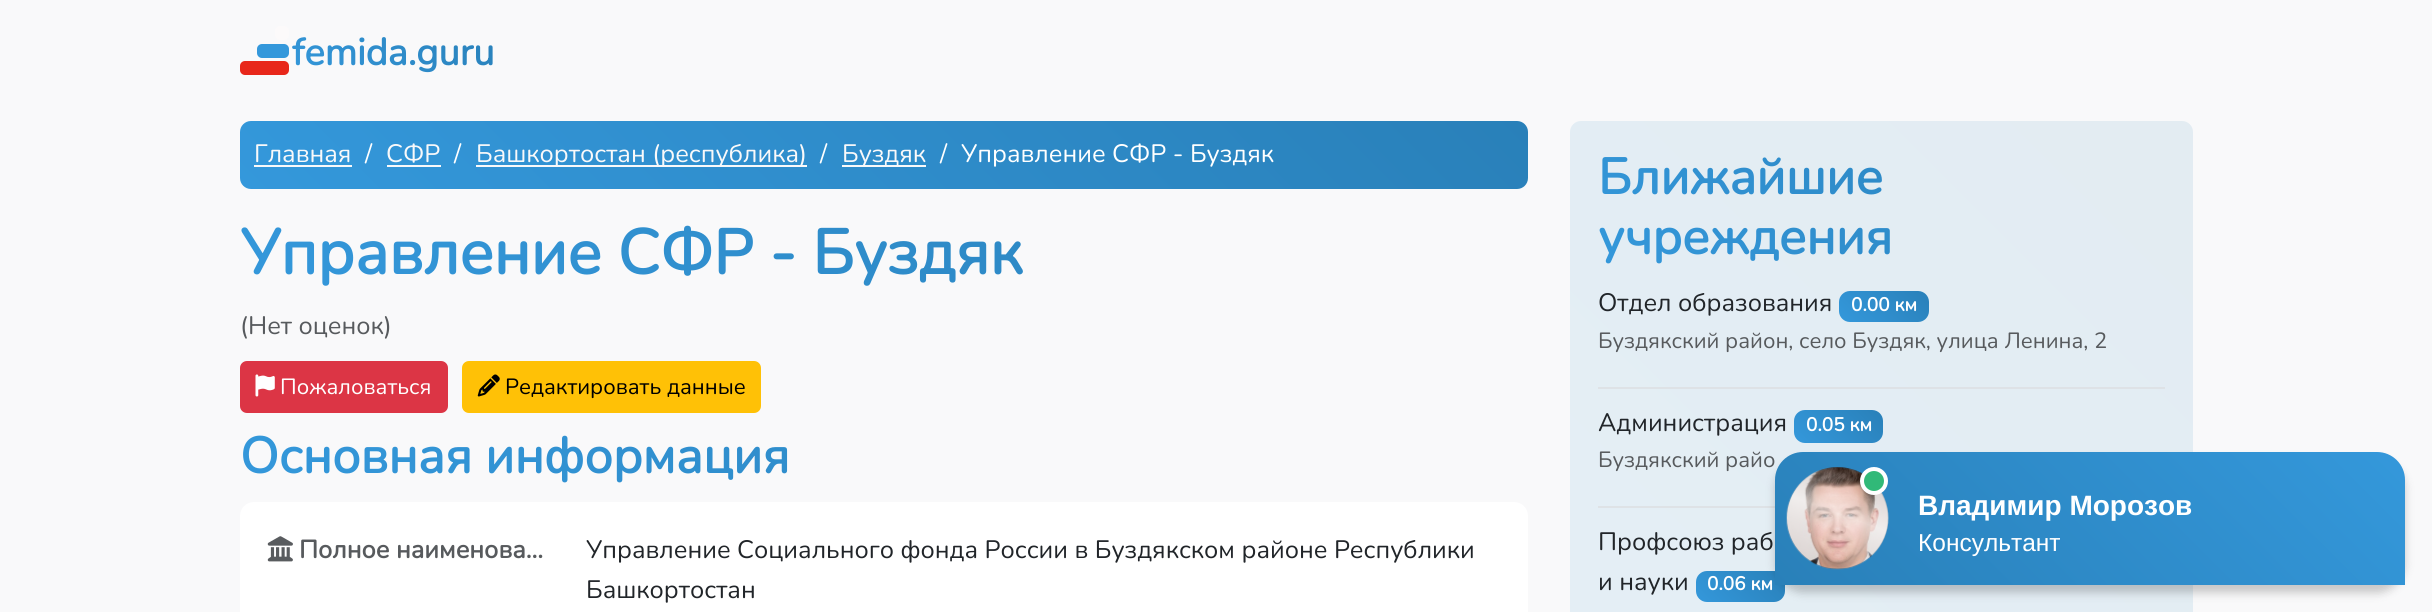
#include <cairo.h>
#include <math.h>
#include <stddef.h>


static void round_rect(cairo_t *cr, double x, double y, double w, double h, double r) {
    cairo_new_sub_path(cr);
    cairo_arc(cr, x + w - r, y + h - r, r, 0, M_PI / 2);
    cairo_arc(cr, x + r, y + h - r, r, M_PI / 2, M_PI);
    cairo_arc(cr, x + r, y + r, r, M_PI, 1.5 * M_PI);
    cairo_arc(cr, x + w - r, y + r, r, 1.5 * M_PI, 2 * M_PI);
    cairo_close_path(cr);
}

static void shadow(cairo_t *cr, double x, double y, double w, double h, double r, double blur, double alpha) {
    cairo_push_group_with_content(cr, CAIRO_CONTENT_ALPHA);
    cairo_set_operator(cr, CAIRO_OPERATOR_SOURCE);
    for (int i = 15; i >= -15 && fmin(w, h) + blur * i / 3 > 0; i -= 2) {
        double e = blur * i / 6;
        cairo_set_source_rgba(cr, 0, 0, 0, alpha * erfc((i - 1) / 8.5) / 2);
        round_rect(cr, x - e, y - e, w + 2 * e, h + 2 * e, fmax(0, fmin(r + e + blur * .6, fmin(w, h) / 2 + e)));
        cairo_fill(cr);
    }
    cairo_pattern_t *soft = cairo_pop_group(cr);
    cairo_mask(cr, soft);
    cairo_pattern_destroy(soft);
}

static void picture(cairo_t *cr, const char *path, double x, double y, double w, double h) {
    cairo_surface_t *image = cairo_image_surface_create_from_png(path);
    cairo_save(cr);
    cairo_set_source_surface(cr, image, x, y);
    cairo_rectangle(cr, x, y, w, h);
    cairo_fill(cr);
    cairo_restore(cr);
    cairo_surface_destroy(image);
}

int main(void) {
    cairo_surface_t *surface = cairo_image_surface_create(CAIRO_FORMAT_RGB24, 2432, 612);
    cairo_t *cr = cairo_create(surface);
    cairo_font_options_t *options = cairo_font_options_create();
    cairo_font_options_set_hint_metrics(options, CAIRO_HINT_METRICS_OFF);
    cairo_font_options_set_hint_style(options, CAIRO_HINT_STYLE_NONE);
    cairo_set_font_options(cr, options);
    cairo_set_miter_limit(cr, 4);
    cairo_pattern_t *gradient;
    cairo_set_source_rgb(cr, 0.973, 0.976, 0.98);
    cairo_paint(cr);
    cairo_set_source_rgb(cr, 0.988, 0.98, 0.98);
    round_rect(cr, 275, 26, 14, 14, 5);
    cairo_fill(cr);
    cairo_set_source_rgb(cr, 0.204, 0.596, 0.859);
    round_rect(cr, 257, 44, 32, 14, 5);
    cairo_fill(cr);
    cairo_set_source_rgb(cr, 0.91, 0.153, 0.102);
    round_rect(cr, 240, 61, 49, 14, 5);
    cairo_fill(cr);
    cairo_select_font_face(cr, "Nunito", CAIRO_FONT_SLANT_NORMAL, CAIRO_FONT_WEIGHT_BOLD);
    cairo_set_font_size(cr, 37.75);
    gradient = cairo_pattern_create_linear(328, 119, 459, -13);
    cairo_pattern_add_color_stop_rgba(gradient, 0, 0.204, 0.596, 0.859, 1);
    cairo_pattern_add_color_stop_rgba(gradient, 1, 0.161, 0.502, 0.725, 1);
    cairo_set_source(cr, gradient);
    cairo_pattern_destroy(gradient);
    cairo_move_to(cr, 292, 65);
    cairo_show_text(cr, "femida.guru");
    gradient = cairo_pattern_create_linear(545, 494, 1223, -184);
    cairo_pattern_add_color_stop_rgba(gradient, 0, 0.204, 0.596, 0.859, 1);
    cairo_pattern_add_color_stop_rgba(gradient, 1, 0.161, 0.502, 0.725, 1);
    cairo_set_source(cr, gradient);
    cairo_pattern_destroy(gradient);
    round_rect(cr, 240, 121, 1288, 68, 11);
    cairo_fill(cr);
    cairo_select_font_face(cr, "Nunito ExtraLight", CAIRO_FONT_SLANT_NORMAL, CAIRO_FONT_WEIGHT_NORMAL);
    cairo_set_font_size(cr, 25.2);
    cairo_set_source_rgb(cr, 0.973, 0.976, 0.98);
    cairo_move_to(cr, 254, 162);
    cairo_show_text(cr, "Главная");
    cairo_rectangle(cr, 254, 165, 98, 2);
    cairo_fill(cr);
    cairo_set_source_rgb(cr, 1, 1, 1);
    cairo_move_to(cr, 365, 162);
    cairo_show_text(cr, "/");
    cairo_set_source_rgb(cr, 0.973, 0.976, 0.98);
    cairo_move_to(cr, 386, 162);
    cairo_show_text(cr, "СФР");
    cairo_rectangle(cr, 387, 165, 54, 2);
    cairo_fill(cr);
    cairo_set_source_rgb(cr, 1, 1, 1);
    cairo_move_to(cr, 454, 162);
    cairo_show_text(cr, "/");
    cairo_set_source_rgb(cr, 0.973, 0.976, 0.98);
    cairo_rectangle(cr, 476, 165, 331, 2);
    cairo_fill(cr);
    cairo_move_to(cr, 476, 162);
    cairo_show_text(cr, "Башкортостан (республика)");
    cairo_set_source_rgb(cr, 1, 1, 1);
    cairo_move_to(cr, 820, 162);
    cairo_show_text(cr, "/");
    cairo_set_source_rgb(cr, 0.973, 0.976, 0.98);
    cairo_rectangle(cr, 842, 165, 84, 2);
    cairo_fill(cr);
    cairo_move_to(cr, 842, 162);
    cairo_show_text(cr, "Буздяк");
    cairo_set_source_rgb(cr, 1, 1, 1);
    cairo_move_to(cr, 940, 162);
    cairo_show_text(cr, "/");
    cairo_move_to(cr, 961, 162);
    cairo_show_text(cr, "Управление СФР - Буздяк");
    cairo_select_font_face(cr, "Nunito", CAIRO_FONT_SLANT_NORMAL, CAIRO_FONT_WEIGHT_BOLD);
    cairo_set_font_size(cr, 63);
    gradient = cairo_pattern_create_linear(543, 595, 1225, -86);
    cairo_pattern_add_color_stop_rgba(gradient, 0, 0.204, 0.596, 0.859, 1);
    cairo_pattern_add_color_stop_rgba(gradient, 1, 0.161, 0.502, 0.725, 1);
    cairo_set_source(cr, gradient);
    cairo_pattern_destroy(gradient);
    cairo_move_to(cr, 240, 274);
    cairo_show_text(cr, "Управление СФР - Буздяк");
    cairo_select_font_face(cr, "Nunito ExtraLight", CAIRO_FONT_SLANT_NORMAL, CAIRO_FONT_WEIGHT_NORMAL);
    cairo_set_font_size(cr, 25.2);
    cairo_set_source_rgb(cr, 0.341, 0.353, 0.365);
    cairo_move_to(cr, 240, 334);
    cairo_show_text(cr, "(Нет оценок)");
    cairo_set_source_rgb(cr, 0.863, 0.208, 0.271);
    round_rect(cr, 241, 362, 206, 50, 6);
    cairo_fill_preserve(cr);
    cairo_stroke(cr);
    picture(cr, "img1.png", 255, 374, 20, 23);
    cairo_set_font_size(cr, 22.05);
    cairo_set_source_rgb(cr, 1, 1, 1);
    cairo_move_to(cr, 280, 394);
    cairo_show_text(cr, "Пожаловаться");
    cairo_set_source_rgb(cr, 1, 0.757, 0.027);
    round_rect(cr, 463, 362, 297, 50, 6);
    cairo_fill_preserve(cr);
    cairo_stroke(cr);
    picture(cr, "img2.png", 477, 374, 23, 23);
    cairo_set_source_rgb(cr, 0, 0, 0);
    cairo_move_to(cr, 505, 394);
    cairo_show_text(cr, "Редактировать данные");
    cairo_select_font_face(cr, "Nunito", CAIRO_FONT_SLANT_NORMAL, CAIRO_FONT_WEIGHT_BOLD);
    cairo_set_font_size(cr, 50.4);
    gradient = cairo_pattern_create_linear(547, 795, 1221, 120);
    cairo_pattern_add_color_stop_rgba(gradient, 0, 0.204, 0.596, 0.859, 1);
    cairo_pattern_add_color_stop_rgba(gradient, 1, 0.161, 0.502, 0.725, 1);
    cairo_set_source(cr, gradient);
    cairo_pattern_destroy(gradient);
    cairo_move_to(cr, 240, 473);
    cairo_show_text(cr, "Основная информация");
    cairo_set_source_rgb(cr, 1, 1, 1);
    round_rect(cr, 240, 502, 1288, 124, 14);
    cairo_fill(cr);
    picture(cr, "img3.png", 267, 536, 26, 26);
    cairo_set_font_size(cr, 25.2);
    cairo_set_source_rgb(cr, 0.341, 0.353, 0.365);
    cairo_move_to(cr, 299, 558);
    cairo_show_text(cr, "Полное наименова…");
    cairo_select_font_face(cr, "Nunito ExtraLight", CAIRO_FONT_SLANT_NORMAL, CAIRO_FONT_WEIGHT_NORMAL);
    cairo_set_source_rgb(cr, 0.129, 0.145, 0.161);
    cairo_move_to(cr, 586, 558);
    cairo_show_text(cr, "Управление Социального фонда России в Буздякском районе Республики");
    cairo_move_to(cr, 586, 598);
    cairo_show_text(cr, "Башкортостан");
    gradient = cairo_pattern_create_linear(1509, 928, 2254, 182);
    cairo_pattern_add_color_stop_rgba(gradient, 0, 0.894, 0.937, 0.965, 1);
    cairo_pattern_add_color_stop_rgba(gradient, 1, 0.89, 0.925, 0.949, 1);
    cairo_set_source(cr, gradient);
    cairo_pattern_destroy(gradient);
    round_rect(cr, 1570, 121, 623, 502, 11);
    cairo_fill(cr);
    cairo_select_font_face(cr, "Nunito", CAIRO_FONT_SLANT_NORMAL, CAIRO_FONT_WEIGHT_BOLD);
    cairo_set_font_size(cr, 50.4);
    gradient = cairo_pattern_create_linear(1709, 381, 2053, 37);
    cairo_pattern_add_color_stop_rgba(gradient, 0, 0.204, 0.596, 0.859, 1);
    cairo_pattern_add_color_stop_rgba(gradient, 1, 0.161, 0.502, 0.725, 1);
    cairo_set_source(cr, gradient);
    cairo_pattern_destroy(gradient);
    cairo_move_to(cr, 1598, 194);
    cairo_show_text(cr, "Ближайшие");
    cairo_move_to(cr, 1598, 254);
    cairo_show_text(cr, "учреждения");
    cairo_set_source_rgb(cr, 0.871, 0.886, 0.902);
    cairo_rectangle(cr, 1598, 387, 567, 2);
    cairo_fill(cr);
    cairo_select_font_face(cr, "Nunito ExtraLight", CAIRO_FONT_SLANT_NORMAL, CAIRO_FONT_WEIGHT_NORMAL);
    cairo_set_font_size(cr, 25.2);
    cairo_set_source_rgb(cr, 0.129, 0.145, 0.161);
    cairo_move_to(cr, 1598, 311);
    cairo_show_text(cr, "Отдел образования");
    gradient = cairo_pattern_create_linear(1854, 336, 1914, 276);
    cairo_pattern_add_color_stop_rgba(gradient, 0, 0.204, 0.596, 0.859, 1);
    cairo_pattern_add_color_stop_rgba(gradient, 1, 0.161, 0.502, 0.725, 1);
    cairo_set_source(cr, gradient);
    cairo_pattern_destroy(gradient);
    round_rect(cr, 1839, 291, 90, 31, 11);
    cairo_fill(cr);
    cairo_select_font_face(cr, "Nunito", CAIRO_FONT_SLANT_NORMAL, CAIRO_FONT_WEIGHT_BOLD);
    cairo_set_font_size(cr, 19);
    cairo_set_source_rgb(cr, 1, 1, 1);
    cairo_move_to(cr, 1851, 311);
    cairo_show_text(cr, "0.00 км");
    cairo_select_font_face(cr, "Nunito ExtraLight", CAIRO_FONT_SLANT_NORMAL, CAIRO_FONT_WEIGHT_NORMAL);
    cairo_set_font_size(cr, 22.05);
    cairo_set_source_rgb(cr, 0.341, 0.353, 0.365);
    cairo_move_to(cr, 1598, 348);
    cairo_show_text(cr, "Буздякский район, село Буздяк, улица Ленина, 2");
    cairo_set_source_rgb(cr, 0.871, 0.886, 0.902);
    cairo_rectangle(cr, 1598, 506, 177, 2);
    cairo_fill(cr);
    cairo_set_font_size(cr, 25.2);
    cairo_set_source_rgb(cr, 0.129, 0.145, 0.161);
    cairo_move_to(cr, 1598, 431);
    cairo_show_text(cr, "Администрация");
    gradient = cairo_pattern_create_linear(1808, 457, 1869, 396);
    cairo_pattern_add_color_stop_rgba(gradient, 0, 0.204, 0.596, 0.859, 1);
    cairo_pattern_add_color_stop_rgba(gradient, 1, 0.161, 0.502, 0.725, 1);
    cairo_set_source(cr, gradient);
    cairo_pattern_destroy(gradient);
    round_rect(cr, 1794, 410, 89, 33, 11);
    cairo_fill(cr);
    cairo_select_font_face(cr, "Nunito", CAIRO_FONT_SLANT_NORMAL, CAIRO_FONT_WEIGHT_BOLD);
    cairo_set_font_size(cr, 19);
    cairo_set_source_rgb(cr, 1, 1, 1);
    cairo_move_to(cr, 1806, 431);
    cairo_show_text(cr, "0.05 км");
    cairo_select_font_face(cr, "Nunito ExtraLight", CAIRO_FONT_SLANT_NORMAL, CAIRO_FONT_WEIGHT_NORMAL);
    cairo_set_font_size(cr, 22.05);
    cairo_set_source_rgb(cr, 0.341, 0.353, 0.365);
    cairo_move_to(cr, 1598, 467);
    cairo_show_text(cr, "Буздякский райо");
    cairo_set_font_size(cr, 25.2);
    cairo_set_source_rgb(cr, 0.129, 0.145, 0.161);
    cairo_move_to(cr, 1598, 550);
    cairo_show_text(cr, "Профсоюз раб");
    cairo_move_to(cr, 1598, 590);
    cairo_show_text(cr, "и науки");
    gradient = cairo_pattern_create_linear(1710, 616, 1771, 556);
    cairo_pattern_add_color_stop_rgba(gradient, 0, 0.204, 0.596, 0.859, 1);
    cairo_pattern_add_color_stop_rgba(gradient, 1, 0.161, 0.502, 0.725, 1);
    cairo_set_source(cr, gradient);
    cairo_pattern_destroy(gradient);
    round_rect(cr, 1696, 571, 89, 31, 11);
    cairo_fill(cr);
    cairo_select_font_face(cr, "Nunito", CAIRO_FONT_SLANT_NORMAL, CAIRO_FONT_WEIGHT_BOLD);
    cairo_set_font_size(cr, 19);
    cairo_set_source_rgb(cr, 1, 1, 1);
    cairo_move_to(cr, 1707, 590);
    cairo_show_text(cr, "0.06 км");
    cairo_set_source_rgb(cr, 0, 0, 0);
    shadow(cr, 1775, 460, 630, 133, 28, 4.5, 0.2);
    gradient = cairo_pattern_create_linear(2280, 327, 1899, 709);
    cairo_pattern_add_color_stop_rgba(gradient, 0, 0.204, 0.596, 0.859, 1);
    cairo_pattern_add_color_stop_rgba(gradient, 1, 0.161, 0.502, 0.725, 1);
    cairo_set_source(cr, gradient);
    cairo_pattern_destroy(gradient);
    cairo_new_path(cr);
    cairo_move_to(cr, 1803, 452);
    cairo_line_to(cr, 2377, 452);
    cairo_curve_to(cr, 2392.5, 452, 2405, 464.5, 2405, 480);
    cairo_line_to(cr, 2405, 585);
    cairo_line_to(cr, 1775, 585);
    cairo_line_to(cr, 1775, 480);
    cairo_curve_to(cr, 1775, 464.5, 1787.5, 452, 1803, 452);
    cairo_close_path(cr);
    cairo_fill(cr);
    cairo_set_source_rgba(cr, 0, 0, 0, 0.25);
    round_rect(cr, 1787, 467, 101, 102, 50.5);
    cairo_fill(cr);
    picture(cr, "img4.png", 1786, 467, 103, 103);
    gradient = cairo_pattern_create_linear(1855, 476, 1820, 572);
    cairo_pattern_add_color_stop_rgba(gradient, 0, 1, 1, 1, 0);
    cairo_pattern_add_color_stop_rgba(gradient, 0.4, 1, 1, 1, 0.6);
    cairo_pattern_add_color_stop_rgba(gradient, 0.6, 1, 1, 1, 0.36);
    cairo_pattern_add_color_stop_rgba(gradient, 1, 1, 1, 1, 0);
    cairo_set_source(cr, gradient);
    cairo_pattern_destroy(gradient);
    cairo_new_path(cr);
    cairo_move_to(cr, 1830, 467);
    cairo_line_to(cr, 1875, 484);
    cairo_curve_to(cr, 1883, 493, 1888, 505, 1888, 518);
    cairo_curve_to(cr, 1888, 546, 1865, 569, 1838, 569);
    cairo_curve_to(cr, 1810, 569, 1787, 546, 1787, 518);
    cairo_curve_to(cr, 1787, 492, 1806, 471, 1830, 467);
    cairo_close_path(cr);
    cairo_fill(cr);
    cairo_set_source_rgb(cr, 0.192, 0.725, 0.471);
    cairo_arc(cr, 1874, 481, 12, 0, 2 * M_PI);
    cairo_fill_preserve(cr);
    cairo_set_source_rgb(cr, 1, 1, 1);
    cairo_set_line_width(cr, 4);
    cairo_stroke(cr);
    cairo_select_font_face(cr, "Liberation Sans", CAIRO_FONT_SLANT_NORMAL, CAIRO_FONT_WEIGHT_BOLD);
    cairo_set_font_size(cr, 28);
    cairo_move_to(cr, 1918, 515);
    cairo_show_text(cr, "Владимир Морозов");
    cairo_select_font_face(cr, "Liberation Sans", CAIRO_FONT_SLANT_NORMAL, CAIRO_FONT_WEIGHT_NORMAL);
    cairo_set_font_size(cr, 24.5);
    cairo_move_to(cr, 1918, 551);
    cairo_show_text(cr, "Консультант");
    cairo_surface_write_to_png(surface, "page.png");
    cairo_font_options_destroy(options);
    cairo_destroy(cr);
    cairo_surface_destroy(surface);
    return 0;
}
